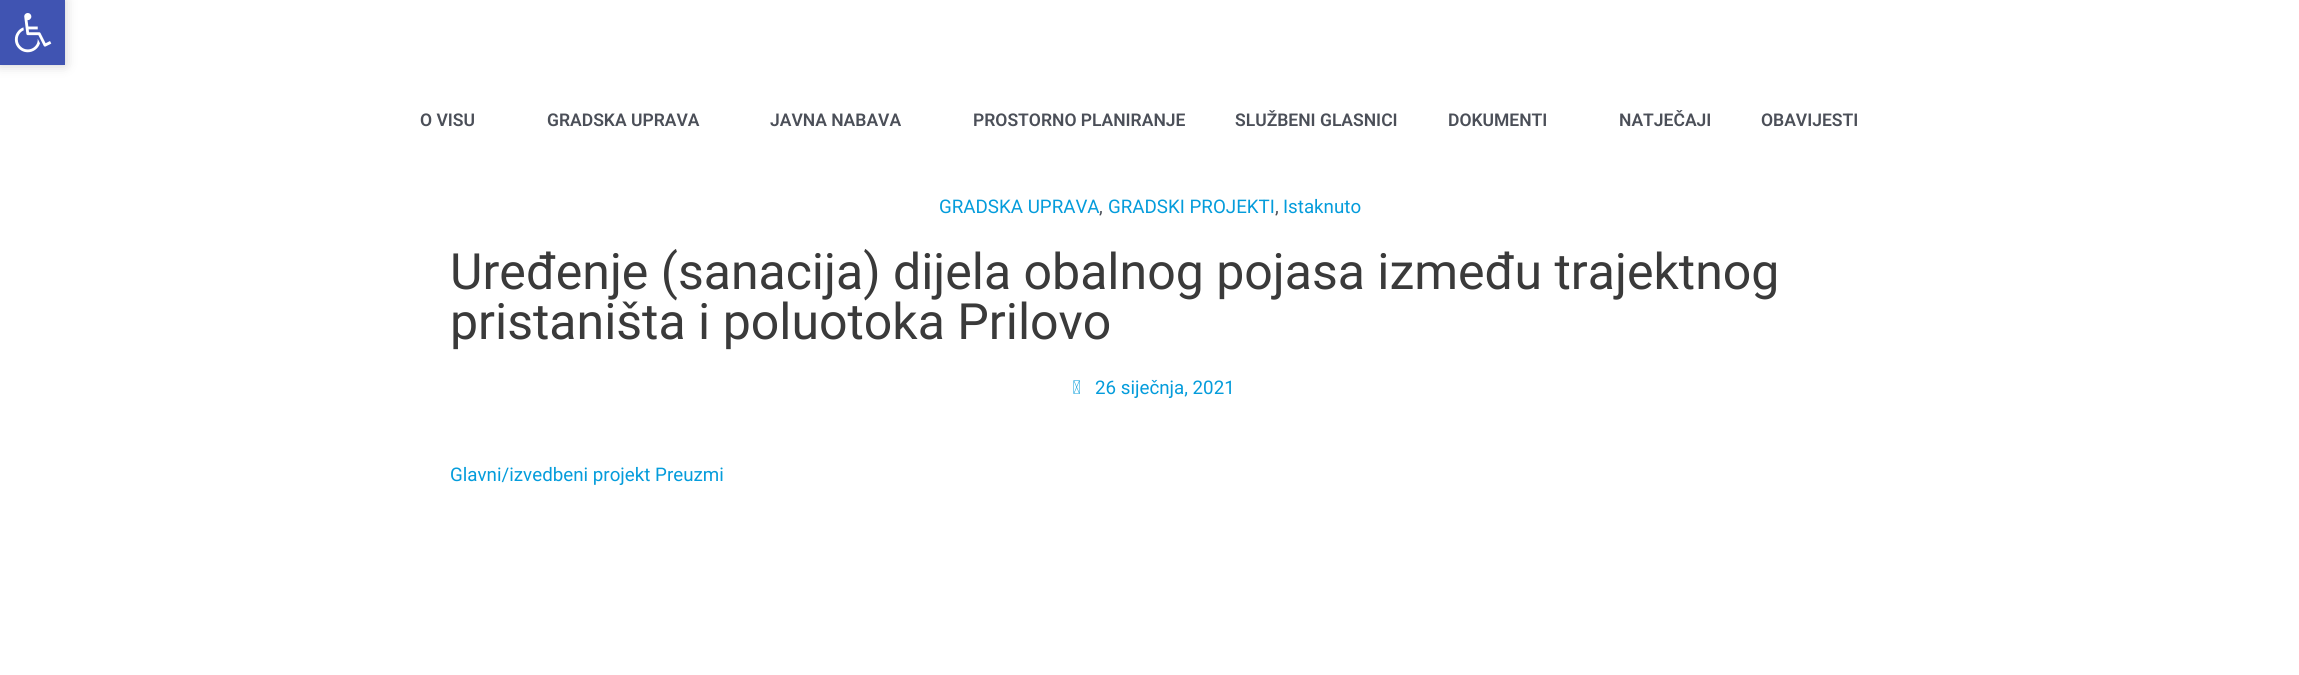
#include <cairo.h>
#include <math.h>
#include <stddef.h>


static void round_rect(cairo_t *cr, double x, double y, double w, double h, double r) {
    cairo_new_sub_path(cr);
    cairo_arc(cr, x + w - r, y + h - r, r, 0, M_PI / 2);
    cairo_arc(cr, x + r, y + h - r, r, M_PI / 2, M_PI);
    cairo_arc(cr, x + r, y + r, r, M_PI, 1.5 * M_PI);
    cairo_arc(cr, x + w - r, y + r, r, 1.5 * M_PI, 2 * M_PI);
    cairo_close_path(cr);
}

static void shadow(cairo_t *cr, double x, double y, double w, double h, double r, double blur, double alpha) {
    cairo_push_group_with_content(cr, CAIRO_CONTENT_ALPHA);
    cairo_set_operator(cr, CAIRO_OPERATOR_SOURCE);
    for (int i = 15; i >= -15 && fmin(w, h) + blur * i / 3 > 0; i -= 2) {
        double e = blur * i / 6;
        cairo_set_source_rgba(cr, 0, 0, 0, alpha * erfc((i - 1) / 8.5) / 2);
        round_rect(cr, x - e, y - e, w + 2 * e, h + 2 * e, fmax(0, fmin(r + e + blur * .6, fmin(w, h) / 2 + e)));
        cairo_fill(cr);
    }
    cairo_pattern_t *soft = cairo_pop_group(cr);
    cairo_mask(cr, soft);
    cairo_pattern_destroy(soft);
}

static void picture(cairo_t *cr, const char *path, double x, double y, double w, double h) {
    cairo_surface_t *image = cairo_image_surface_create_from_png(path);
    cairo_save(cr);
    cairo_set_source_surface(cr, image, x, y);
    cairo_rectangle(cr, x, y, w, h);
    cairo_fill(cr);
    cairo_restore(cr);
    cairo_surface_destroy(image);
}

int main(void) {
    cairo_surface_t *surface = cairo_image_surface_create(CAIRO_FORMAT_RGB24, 2299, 675);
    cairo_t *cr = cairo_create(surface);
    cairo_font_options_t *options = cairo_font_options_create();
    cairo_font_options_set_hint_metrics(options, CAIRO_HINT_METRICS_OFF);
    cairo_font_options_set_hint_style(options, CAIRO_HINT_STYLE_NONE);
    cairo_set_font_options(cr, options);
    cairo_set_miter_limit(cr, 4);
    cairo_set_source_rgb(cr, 1, 1, 1);
    cairo_paint(cr);
    cairo_set_source_rgb(cr, 0, 0, 0);
    shadow(cr, 0, 0, 65, 65, 0, 6, 0.2);
    cairo_set_source_rgb(cr, 0.251, 0.329, 0.698);
    cairo_rectangle(cr, 0, 0, 65, 65);
    cairo_fill(cr);
    picture(cr, "img1.png", 14, 13, 38, 40);
    cairo_select_font_face(cr, "Roboto SemiBold", CAIRO_FONT_SLANT_NORMAL, CAIRO_FONT_WEIGHT_NORMAL);
    cairo_set_font_size(cr, 17.5);
    cairo_set_source_rgb(cr, 0.294, 0.31, 0.345);
    cairo_move_to(cr, 420, 126);
    cairo_show_text(cr, "O VISU");
    cairo_move_to(cr, 547, 126);
    cairo_show_text(cr, "GRADSKA UPRAVA");
    cairo_move_to(cr, 770, 126);
    cairo_show_text(cr, "JAVNA NABAVA");
    cairo_move_to(cr, 973, 126);
    cairo_show_text(cr, "PROSTORNO PLANIRANJE");
    cairo_move_to(cr, 1235, 126);
    cairo_show_text(cr, "SLUŽBENI GLASNICI");
    cairo_move_to(cr, 1448, 126);
    cairo_show_text(cr, "DOKUMENTI");
    cairo_move_to(cr, 1619, 126);
    cairo_show_text(cr, "NATJEČAJI");
    cairo_move_to(cr, 1761, 126);
    cairo_show_text(cr, "OBAVIJESTI");
    cairo_select_font_face(cr, "Roboto", CAIRO_FONT_SLANT_NORMAL, CAIRO_FONT_WEIGHT_NORMAL);
    cairo_set_font_size(cr, 18.75);
    cairo_set_source_rgb(cr, 0.016, 0.612, 0.859);
    cairo_move_to(cr, 939, 213);
    cairo_show_text(cr, "GRADSKA UPRAVA");
    cairo_set_source_rgb(cr, 0.294, 0.31, 0.345);
    cairo_move_to(cr, 1099, 213);
    cairo_show_text(cr, ",");
    cairo_set_source_rgb(cr, 0.016, 0.612, 0.859);
    cairo_move_to(cr, 1108, 213);
    cairo_show_text(cr, "GRADSKI PROJEKTI");
    cairo_set_source_rgb(cr, 0.294, 0.31, 0.345);
    cairo_move_to(cr, 1275, 213);
    cairo_show_text(cr, ",");
    cairo_set_source_rgb(cr, 0.016, 0.612, 0.859);
    cairo_move_to(cr, 1283, 213);
    cairo_show_text(cr, "Istaknuto");
    cairo_set_font_size(cr, 50);
    cairo_set_source_rgb(cr, 0.227, 0.227, 0.227);
    cairo_move_to(cr, 450, 289);
    cairo_show_text(cr, "Uređenje (sanacija) dijela obalnog pojasa između trajektnog");
    cairo_move_to(cr, 450, 339);
    cairo_show_text(cr, "pristaništa i poluotoka Prilovo");
    picture(cr, "img2.png", 1073, 380, 7, 14);
    cairo_set_font_size(cr, 18.75);
    cairo_set_source_rgb(cr, 0.016, 0.612, 0.859);
    cairo_move_to(cr, 1095, 394);
    cairo_show_text(cr, "26 siječnja, 2021");
    cairo_move_to(cr, 450, 481);
    cairo_show_text(cr, "Glavni/izvedbeni projekt Preuzmi");
    cairo_surface_write_to_png(surface, "page.png");
    cairo_font_options_destroy(options);
    cairo_destroy(cr);
    cairo_surface_destroy(surface);
    return 0;
}
